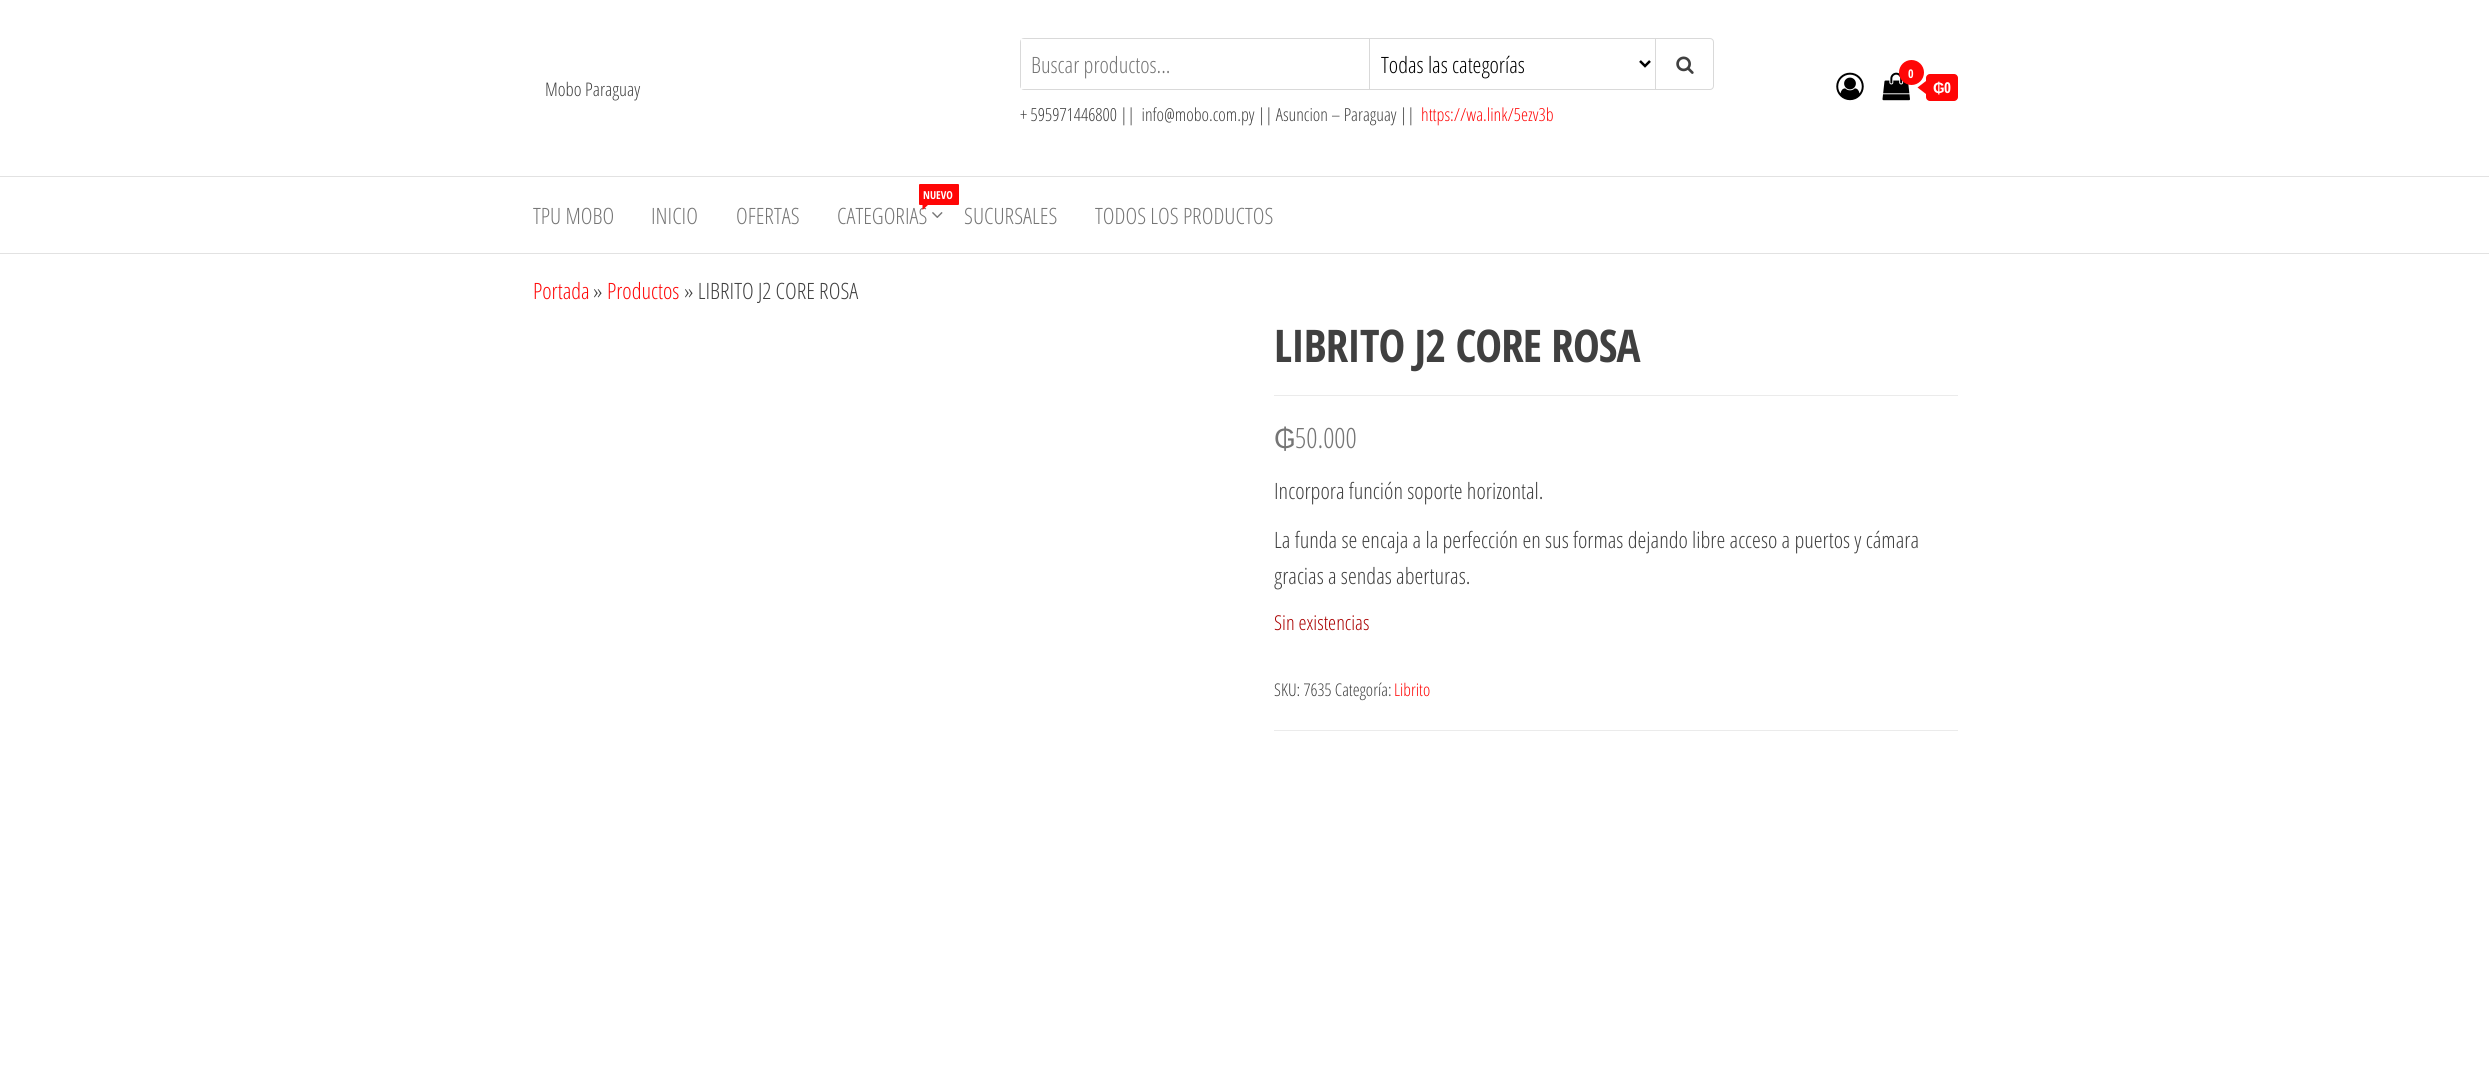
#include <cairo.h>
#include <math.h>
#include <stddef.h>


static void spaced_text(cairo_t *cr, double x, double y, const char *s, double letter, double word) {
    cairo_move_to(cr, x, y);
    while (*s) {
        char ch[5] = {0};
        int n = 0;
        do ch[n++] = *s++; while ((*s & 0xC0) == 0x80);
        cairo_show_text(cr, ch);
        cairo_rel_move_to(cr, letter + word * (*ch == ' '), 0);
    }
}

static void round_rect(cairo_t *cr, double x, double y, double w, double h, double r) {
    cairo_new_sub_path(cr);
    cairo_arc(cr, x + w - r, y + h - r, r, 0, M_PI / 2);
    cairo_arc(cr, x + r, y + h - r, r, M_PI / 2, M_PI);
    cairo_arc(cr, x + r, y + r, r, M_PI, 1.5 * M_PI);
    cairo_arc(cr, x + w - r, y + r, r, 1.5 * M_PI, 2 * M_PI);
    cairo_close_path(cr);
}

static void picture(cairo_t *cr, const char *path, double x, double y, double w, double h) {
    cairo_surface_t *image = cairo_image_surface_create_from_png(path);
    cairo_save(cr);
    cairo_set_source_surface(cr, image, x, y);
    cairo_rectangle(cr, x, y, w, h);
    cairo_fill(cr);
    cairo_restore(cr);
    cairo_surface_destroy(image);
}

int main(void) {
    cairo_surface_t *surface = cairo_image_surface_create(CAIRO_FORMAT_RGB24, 2489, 1080);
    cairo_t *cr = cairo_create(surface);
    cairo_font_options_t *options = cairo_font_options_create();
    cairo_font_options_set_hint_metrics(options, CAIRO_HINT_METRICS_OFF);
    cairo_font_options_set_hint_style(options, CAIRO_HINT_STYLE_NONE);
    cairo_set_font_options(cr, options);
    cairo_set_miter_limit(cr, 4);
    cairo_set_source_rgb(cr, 1, 1, 1);
    cairo_paint(cr);
    cairo_select_font_face(cr, "Open Sans Condensed Light", CAIRO_FONT_SLANT_NORMAL, CAIRO_FONT_WEIGHT_NORMAL);
    cairo_set_font_size(cr, 18.75);
    cairo_set_source_rgb(cr, 0.251, 0.251, 0.251);
    cairo_move_to(cr, 545, 96);
    cairo_show_text(cr, "Mobo Paraguay");
    round_rect(cr, 1020.5, 38.5, 693, 51, 3.5);
    cairo_set_source_rgb(cr, 0.851, 0.851, 0.851);
    cairo_set_line_width(cr, 1);
    cairo_stroke(cr);
    cairo_set_source_rgb(cr, 1, 1, 1);
    cairo_rectangle(cr, 1021, 39, 3, 50);
    cairo_fill(cr);
    cairo_set_source_rgb(cr, 0.851, 0.851, 0.851);
    cairo_rectangle(cr, 1369, 39, 1, 50);
    cairo_fill(cr);
    cairo_set_font_size(cr, 22.5);
    cairo_set_source_rgb(cr, 0.459, 0.459, 0.459);
    cairo_move_to(cr, 1031, 73);
    cairo_show_text(cr, "Buscar productos...");
    cairo_new_path(cr);
    cairo_move_to(cr, 1640, 61);
    cairo_line_to(cr, 1645, 66);
    cairo_line_to(cr, 1650, 61);
    cairo_set_source_rgb(cr, 0, 0, 0);
    cairo_set_line_width(cr, 2.5);
    cairo_stroke(cr);
    cairo_move_to(cr, 1381, 73);
    cairo_show_text(cr, "Todas las categorías");
    cairo_set_source_rgb(cr, 0.851, 0.851, 0.851);
    cairo_rectangle(cr, 1655, 39, 1, 50);
    cairo_fill(cr);
    picture(cr, "img1.png", 1676, 56, 18, 18);
    cairo_set_font_size(cr, 18);
    cairo_set_source_rgb(cr, 0.251, 0.251, 0.251);
    cairo_move_to(cr, 1020, 121);
    cairo_show_text(cr, "+ 595971446800 ||  info@mobo.com.py || Asuncion – Paraguay ||");
    cairo_set_source_rgb(cr, 1, 0.027, 0.027);
    cairo_move_to(cr, 1421, 121);
    cairo_show_text(cr, "https://wa.link/5ezv3b");
    picture(cr, "img2.png", 1836, 72, 28, 29);
    picture(cr, "img3.png", 1882, 72, 28, 29);
    cairo_arc(cr, 1911.5, 72.5, 12.5, 0, 2 * M_PI);
    cairo_fill(cr);
    cairo_select_font_face(cr, "Open Sans Condensed", CAIRO_FONT_SLANT_NORMAL, CAIRO_FONT_WEIGHT_BOLD);
    cairo_set_font_size(cr, 12);
    cairo_set_source_rgb(cr, 1, 1, 1);
    cairo_move_to(cr, 1908, 78);
    cairo_show_text(cr, "0");
    cairo_set_source_rgb(cr, 1, 0.027, 0.027);
    round_rect(cr, 1926, 74, 32, 27, 4);
    cairo_fill(cr);
    cairo_new_path(cr);
    cairo_move_to(cr, 1926, 81);
    cairo_line_to(cr, 1926, 94);
    cairo_line_to(cr, 1917.5, 87.5);
    cairo_close_path(cr);
    cairo_fill(cr);
    cairo_select_font_face(cr, "Liberation Sans", CAIRO_FONT_SLANT_NORMAL, CAIRO_FONT_WEIGHT_BOLD);
    cairo_set_font_size(cr, 15);
    cairo_set_source_rgb(cr, 1, 1, 1);
    cairo_move_to(cr, 1933, 93);
    cairo_show_text(cr, "₲");
    cairo_select_font_face(cr, "Open Sans Condensed", CAIRO_FONT_SLANT_NORMAL, CAIRO_FONT_WEIGHT_BOLD);
    cairo_move_to(cr, 1944, 93);
    cairo_show_text(cr, "0");
    cairo_set_source_rgb(cr, 0.886, 0.886, 0.886);
    cairo_rectangle(cr, 0, 176, 2489, 1);
    cairo_fill(cr);
    cairo_rectangle(cr, 0, 253, 2489, 1);
    cairo_fill(cr);
    cairo_select_font_face(cr, "Open Sans Condensed Light", CAIRO_FONT_SLANT_NORMAL, CAIRO_FONT_WEIGHT_NORMAL);
    cairo_set_font_size(cr, 22.5);
    cairo_set_source_rgb(cr, 0.459, 0.459, 0.459);
    cairo_move_to(cr, 533, 224);
    cairo_show_text(cr, "TPU MOBO");
    cairo_move_to(cr, 651, 224);
    cairo_show_text(cr, "INICIO");
    cairo_move_to(cr, 736, 224);
    cairo_show_text(cr, "OFERTAS");
    cairo_set_source_rgb(cr, 1, 0.027, 0.027);
    round_rect(cr, 919, 184, 40, 21, 1);
    cairo_fill(cr);
    cairo_select_font_face(cr, "Open Sans Condensed", CAIRO_FONT_SLANT_NORMAL, CAIRO_FONT_WEIGHT_BOLD);
    cairo_set_font_size(cr, 11);
    cairo_set_source_rgb(cr, 1, 1, 1);
    cairo_move_to(cr, 923, 199);
    cairo_show_text(cr, "NUEVO");
    cairo_select_font_face(cr, "Open Sans Condensed Light", CAIRO_FONT_SLANT_NORMAL, CAIRO_FONT_WEIGHT_NORMAL);
    cairo_set_font_size(cr, 22.5);
    cairo_set_source_rgb(cr, 0.459, 0.459, 0.459);
    cairo_move_to(cr, 837, 224);
    cairo_show_text(cr, "CATEGORIAS");
    cairo_set_source_rgb(cr, 1, 0.027, 0.027);
    cairo_new_path(cr);
    cairo_move_to(cr, 922.5, 204);
    cairo_line_to(cr, 929, 204);
    cairo_line_to(cr, 922.5, 210);
    cairo_close_path(cr);
    cairo_fill(cr);
    picture(cr, "img4.png", 932, 212, 11, 6);
    cairo_set_source_rgb(cr, 0.459, 0.459, 0.459);
    cairo_move_to(cr, 964, 224);
    cairo_show_text(cr, "SUCURSALES");
    cairo_move_to(cr, 1095, 224);
    cairo_show_text(cr, "TODOS LOS PRODUCTOS");
    cairo_set_source_rgb(cr, 1, 0.027, 0.027);
    cairo_move_to(cr, 533, 299);
    cairo_show_text(cr, "Portada");
    cairo_set_source_rgb(cr, 0.251, 0.251, 0.251);
    cairo_move_to(cr, 593, 299);
    cairo_show_text(cr, "»");
    cairo_set_source_rgb(cr, 1, 0.027, 0.027);
    cairo_move_to(cr, 607, 299);
    cairo_show_text(cr, "Productos");
    cairo_set_source_rgb(cr, 0.251, 0.251, 0.251);
    cairo_move_to(cr, 684, 299);
    cairo_show_text(cr, "» LIBRITO J2 CORE ROSA");
    cairo_set_source_rgb(cr, 0.918, 0.918, 0.918);
    cairo_rectangle(cr, 1274, 395, 684, 1);
    cairo_fill(cr);
    cairo_select_font_face(cr, "Open Sans Condensed", CAIRO_FONT_SLANT_NORMAL, CAIRO_FONT_WEIGHT_BOLD);
    cairo_set_font_size(cr, 45);
    cairo_set_source_rgb(cr, 0.251, 0.251, 0.251);
    spaced_text(cr, 1274, 362, "LIBRITO J2 CORE ROSA", -0.9, 0);
    cairo_select_font_face(cr, "Liberation Sans", CAIRO_FONT_SLANT_NORMAL, CAIRO_FONT_WEIGHT_NORMAL);
    cairo_set_font_size(cr, 28);
    cairo_set_source_rgb(cr, 0.459, 0.459, 0.459);
    cairo_move_to(cr, 1274, 448);
    cairo_show_text(cr, "₲");
    cairo_select_font_face(cr, "Open Sans Condensed Light", CAIRO_FONT_SLANT_NORMAL, CAIRO_FONT_WEIGHT_NORMAL);
    cairo_move_to(cr, 1295, 448);
    cairo_show_text(cr, "50.000");
    cairo_set_font_size(cr, 22.5);
    cairo_set_source_rgb(cr, 0.251, 0.251, 0.251);
    cairo_move_to(cr, 1274, 499);
    cairo_show_text(cr, "Incorpora función soporte horizontal.");
    cairo_move_to(cr, 1274, 548);
    cairo_show_text(cr, "La funda se encaja a la perfección en sus formas dejando libre acceso a puertos y cámara");
    cairo_move_to(cr, 1274, 584);
    cairo_show_text(cr, "gracias a sendas aberturas.");
    cairo_set_font_size(cr, 20.5);
    cairo_set_source_rgb(cr, 0.667, 0, 0);
    cairo_move_to(cr, 1274, 630);
    cairo_show_text(cr, "Sin existencias");
    cairo_set_source_rgb(cr, 0.918, 0.918, 0.918);
    cairo_rectangle(cr, 1274, 730, 684, 1);
    cairo_fill(cr);
    cairo_set_font_size(cr, 17.5);
    cairo_set_source_rgb(cr, 0.251, 0.251, 0.251);
    cairo_move_to(cr, 1274, 696);
    cairo_show_text(cr, "SKU: 7635 Categoría:");
    cairo_set_source_rgb(cr, 1, 0.027, 0.027);
    cairo_move_to(cr, 1394, 696);
    cairo_show_text(cr, "Librito");
    cairo_surface_write_to_png(surface, "page.png");
    cairo_font_options_destroy(options);
    cairo_destroy(cr);
    cairo_surface_destroy(surface);
    return 0;
}
